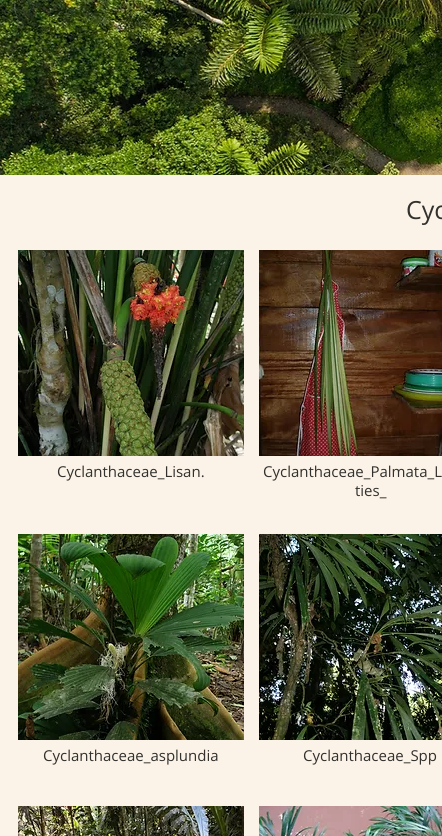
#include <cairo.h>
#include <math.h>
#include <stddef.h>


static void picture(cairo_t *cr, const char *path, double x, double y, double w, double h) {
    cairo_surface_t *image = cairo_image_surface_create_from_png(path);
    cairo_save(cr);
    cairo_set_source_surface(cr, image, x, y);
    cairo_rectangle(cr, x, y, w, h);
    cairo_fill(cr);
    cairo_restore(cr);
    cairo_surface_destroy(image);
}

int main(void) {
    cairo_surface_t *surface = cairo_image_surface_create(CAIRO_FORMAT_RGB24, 442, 836);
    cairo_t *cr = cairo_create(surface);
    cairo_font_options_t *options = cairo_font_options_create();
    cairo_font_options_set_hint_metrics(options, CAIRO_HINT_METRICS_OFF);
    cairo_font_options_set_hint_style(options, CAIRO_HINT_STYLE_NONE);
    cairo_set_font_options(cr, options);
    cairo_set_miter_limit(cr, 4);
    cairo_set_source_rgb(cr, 0.984, 0.953, 0.91);
    cairo_paint(cr);
    picture(cr, "img1.png", 0, 0, 442, 175);
    cairo_select_font_face(cr, "Open Sans", CAIRO_FONT_SLANT_NORMAL, CAIRO_FONT_WEIGHT_NORMAL);
    cairo_set_font_size(cr, 25);
    cairo_set_source_rgb(cr, 0.196, 0.192, 0.18);
    cairo_move_to(cr, 406, 219);
    cairo_show_text(cr, "Cyc");
    picture(cr, "img2.png", 18, 250, 226, 206);
    picture(cr, "img3.png", 259, 250, 183, 206);
    cairo_set_font_size(cr, 15);
    cairo_move_to(cr, 57, 477);
    cairo_show_text(cr, "Cyclanthaceae_Lisan.");
    cairo_move_to(cr, 263, 477);
    cairo_show_text(cr, "Cyclanthaceae_Palmata_L");
    cairo_move_to(cr, 355, 496);
    cairo_show_text(cr, "ties_");
    picture(cr, "img4.png", 18, 534, 226, 206);
    picture(cr, "img5.png", 259, 534, 183, 206);
    cairo_move_to(cr, 43, 761);
    cairo_show_text(cr, "Cyclanthaceae_asplundia");
    cairo_move_to(cr, 303, 761);
    cairo_show_text(cr, "Cyclanthaceae_Spp");
    picture(cr, "img6.png", 18, 806, 226, 30);
    picture(cr, "img7.png", 259, 806, 183, 30);
    cairo_surface_write_to_png(surface, "page.png");
    cairo_font_options_destroy(options);
    cairo_destroy(cr);
    cairo_surface_destroy(surface);
    return 0;
}
